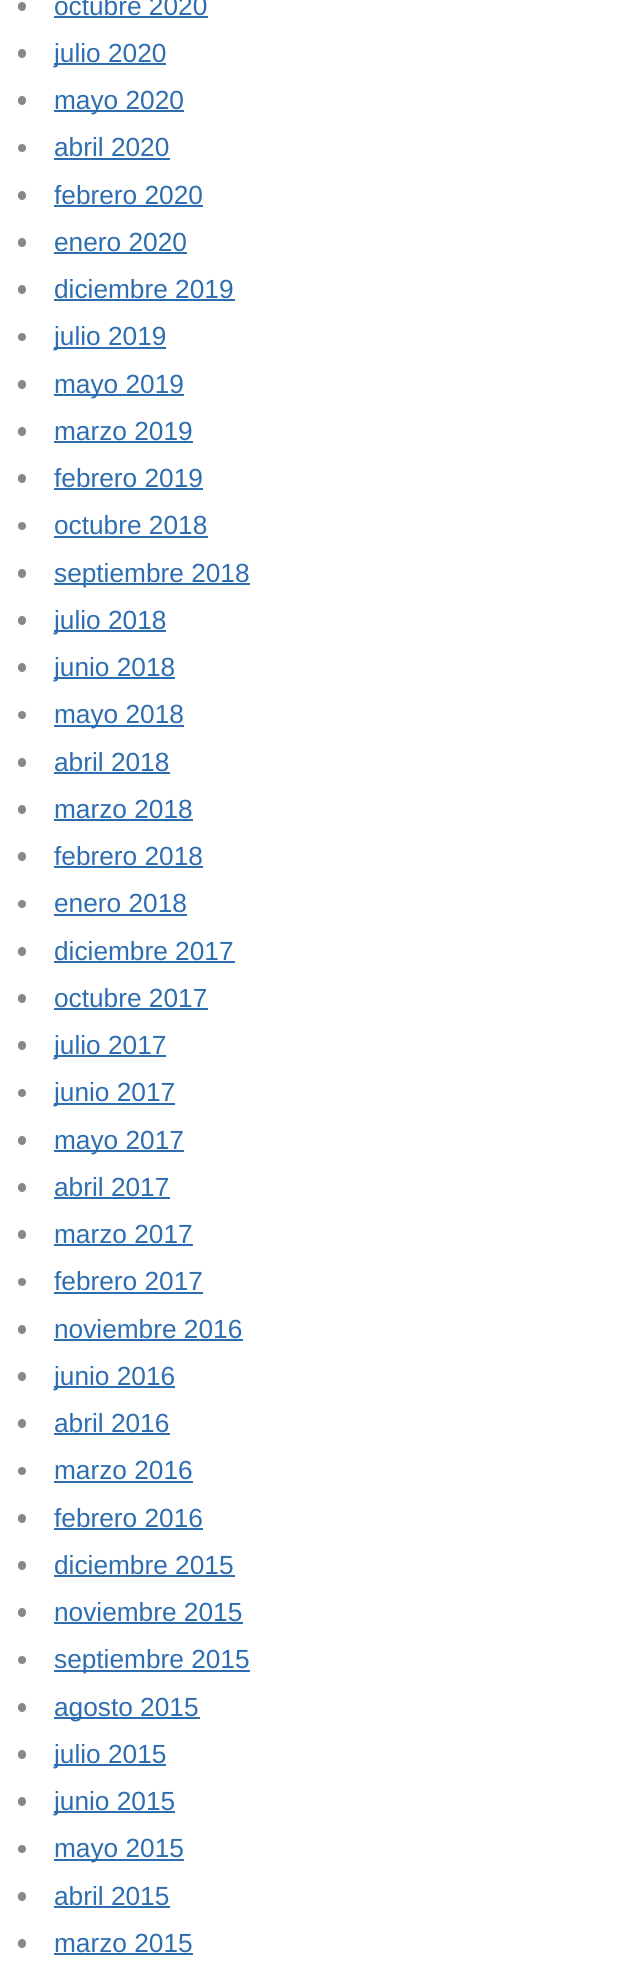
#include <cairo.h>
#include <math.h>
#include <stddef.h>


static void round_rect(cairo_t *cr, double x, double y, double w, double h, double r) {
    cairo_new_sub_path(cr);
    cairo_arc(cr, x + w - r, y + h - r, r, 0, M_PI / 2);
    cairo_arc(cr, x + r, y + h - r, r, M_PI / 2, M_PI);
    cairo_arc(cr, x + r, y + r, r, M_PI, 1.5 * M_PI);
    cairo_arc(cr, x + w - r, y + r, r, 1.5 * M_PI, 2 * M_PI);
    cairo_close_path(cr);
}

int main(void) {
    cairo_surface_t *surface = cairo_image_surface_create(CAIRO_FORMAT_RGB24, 623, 1980);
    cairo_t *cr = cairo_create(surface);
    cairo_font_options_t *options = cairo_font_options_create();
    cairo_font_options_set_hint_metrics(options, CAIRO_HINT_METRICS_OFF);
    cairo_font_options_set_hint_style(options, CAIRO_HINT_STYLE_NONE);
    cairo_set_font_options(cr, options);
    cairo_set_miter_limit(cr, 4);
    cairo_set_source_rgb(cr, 1, 1, 1);
    cairo_paint(cr);
    cairo_set_source_rgb(cr, 0.533, 0.533, 0.533);
    round_rect(cr, 18, 2, 8, 9, 4);
    cairo_fill(cr);
    cairo_select_font_face(cr, "Liberation Sans", CAIRO_FONT_SLANT_NORMAL, CAIRO_FONT_WEIGHT_NORMAL);
    cairo_set_font_size(cr, 26.25);
    cairo_set_source_rgb(cr, 0.18, 0.431, 0.69);
    cairo_move_to(cr, 54, 15);
    cairo_show_text(cr, "octubre 2020");
    cairo_rectangle(cr, 54, 16, 154, 2);
    cairo_fill(cr);
    cairo_set_source_rgb(cr, 0.533, 0.533, 0.533);
    round_rect(cr, 18, 49, 8, 9, 4);
    cairo_fill(cr);
    cairo_set_source_rgb(cr, 0.18, 0.431, 0.69);
    cairo_rectangle(cr, 54, 63, 112, 2);
    cairo_fill(cr);
    cairo_move_to(cr, 54, 62);
    cairo_show_text(cr, "julio 2020");
    cairo_set_source_rgb(cr, 0.533, 0.533, 0.533);
    round_rect(cr, 18, 96, 8, 9, 4);
    cairo_fill(cr);
    cairo_set_source_rgb(cr, 0.18, 0.431, 0.69);
    cairo_rectangle(cr, 54, 110, 130, 2);
    cairo_fill(cr);
    cairo_move_to(cr, 54, 109);
    cairo_show_text(cr, "mayo 2020");
    cairo_set_source_rgb(cr, 0.533, 0.533, 0.533);
    cairo_new_path(cr);
    cairo_arc(cr, 22, 148, 4, 0, 2 * M_PI);
    cairo_fill(cr);
    cairo_set_source_rgb(cr, 0.18, 0.431, 0.69);
    cairo_move_to(cr, 54, 156);
    cairo_show_text(cr, "abril 2020");
    cairo_rectangle(cr, 54, 158, 116, 2);
    cairo_fill(cr);
    cairo_set_source_rgb(cr, 0.533, 0.533, 0.533);
    round_rect(cr, 18, 191, 8, 9, 4);
    cairo_fill(cr);
    cairo_set_source_rgb(cr, 0.18, 0.431, 0.69);
    cairo_move_to(cr, 54, 204);
    cairo_show_text(cr, "febrero 2020");
    cairo_rectangle(cr, 54, 205, 149, 2);
    cairo_fill(cr);
    cairo_set_source_rgb(cr, 0.533, 0.533, 0.533);
    round_rect(cr, 18, 238, 8, 9, 4);
    cairo_fill(cr);
    cairo_set_source_rgb(cr, 0.18, 0.431, 0.69);
    cairo_move_to(cr, 54, 251);
    cairo_show_text(cr, "enero 2020");
    cairo_rectangle(cr, 54, 252, 133, 2);
    cairo_fill(cr);
    cairo_set_source_rgb(cr, 0.533, 0.533, 0.533);
    round_rect(cr, 18, 285, 8, 9, 4);
    cairo_fill(cr);
    cairo_set_source_rgb(cr, 0.18, 0.431, 0.69);
    cairo_move_to(cr, 54, 298);
    cairo_show_text(cr, "diciembre 2019");
    cairo_rectangle(cr, 54, 299, 181, 2);
    cairo_fill(cr);
    cairo_set_source_rgb(cr, 0.533, 0.533, 0.533);
    cairo_arc(cr, 22, 337, 4, 0, 2 * M_PI);
    cairo_fill(cr);
    cairo_set_source_rgb(cr, 0.18, 0.431, 0.69);
    cairo_rectangle(cr, 54, 347, 112, 2);
    cairo_fill(cr);
    cairo_move_to(cr, 54, 345);
    cairo_show_text(cr, "julio 2019");
    cairo_set_source_rgb(cr, 0.533, 0.533, 0.533);
    round_rect(cr, 18, 380, 8, 9, 4);
    cairo_fill(cr);
    cairo_set_source_rgb(cr, 0.18, 0.431, 0.69);
    cairo_rectangle(cr, 54, 394, 130, 2);
    cairo_fill(cr);
    cairo_move_to(cr, 54, 393);
    cairo_show_text(cr, "mayo 2019");
    cairo_set_source_rgb(cr, 0.533, 0.533, 0.533);
    round_rect(cr, 18, 427, 8, 9, 4);
    cairo_fill(cr);
    cairo_set_source_rgb(cr, 0.18, 0.431, 0.69);
    cairo_move_to(cr, 54, 440);
    cairo_show_text(cr, "marzo 2019");
    cairo_rectangle(cr, 54, 441, 139, 2);
    cairo_fill(cr);
    cairo_set_source_rgb(cr, 0.533, 0.533, 0.533);
    round_rect(cr, 18, 474, 8, 9, 4);
    cairo_fill(cr);
    cairo_set_source_rgb(cr, 0.18, 0.431, 0.69);
    cairo_move_to(cr, 54, 487);
    cairo_show_text(cr, "febrero 2019");
    cairo_rectangle(cr, 54, 488, 149, 2);
    cairo_fill(cr);
    cairo_set_source_rgb(cr, 0.533, 0.533, 0.533);
    cairo_arc(cr, 22, 526, 4, 0, 2 * M_PI);
    cairo_fill(cr);
    cairo_set_source_rgb(cr, 0.18, 0.431, 0.69);
    cairo_move_to(cr, 54, 534);
    cairo_show_text(cr, "octubre 2018");
    cairo_rectangle(cr, 54, 536, 154, 2);
    cairo_fill(cr);
    cairo_set_source_rgb(cr, 0.533, 0.533, 0.533);
    round_rect(cr, 18, 569, 8, 9, 4);
    cairo_fill(cr);
    cairo_set_source_rgb(cr, 0.18, 0.431, 0.69);
    cairo_rectangle(cr, 54, 583, 196, 2);
    cairo_fill(cr);
    cairo_move_to(cr, 54, 582);
    cairo_show_text(cr, "septiembre 2018");
    cairo_set_source_rgb(cr, 0.533, 0.533, 0.533);
    round_rect(cr, 18, 616, 8, 9, 4);
    cairo_fill(cr);
    cairo_set_source_rgb(cr, 0.18, 0.431, 0.69);
    cairo_rectangle(cr, 54, 630, 112, 2);
    cairo_fill(cr);
    cairo_move_to(cr, 54, 629);
    cairo_show_text(cr, "julio 2018");
    cairo_set_source_rgb(cr, 0.533, 0.533, 0.533);
    round_rect(cr, 18, 663, 8, 9, 4);
    cairo_fill(cr);
    cairo_set_source_rgb(cr, 0.18, 0.431, 0.69);
    cairo_rectangle(cr, 54, 677, 121, 2);
    cairo_fill(cr);
    cairo_move_to(cr, 54, 676);
    cairo_show_text(cr, "junio 2018");
    cairo_set_source_rgb(cr, 0.533, 0.533, 0.533);
    cairo_new_path(cr);
    cairo_arc(cr, 22, 715, 4, 0, 2 * M_PI);
    cairo_fill(cr);
    cairo_set_source_rgb(cr, 0.18, 0.431, 0.69);
    cairo_rectangle(cr, 54, 725, 130, 2);
    cairo_fill(cr);
    cairo_move_to(cr, 54, 723);
    cairo_show_text(cr, "mayo 2018");
    cairo_set_source_rgb(cr, 0.533, 0.533, 0.533);
    round_rect(cr, 18, 758, 8, 9, 4);
    cairo_fill(cr);
    cairo_set_source_rgb(cr, 0.18, 0.431, 0.69);
    cairo_move_to(cr, 54, 771);
    cairo_show_text(cr, "abril 2018");
    cairo_rectangle(cr, 54, 772, 116, 2);
    cairo_fill(cr);
    cairo_set_source_rgb(cr, 0.533, 0.533, 0.533);
    round_rect(cr, 18, 805, 8, 9, 4);
    cairo_fill(cr);
    cairo_set_source_rgb(cr, 0.18, 0.431, 0.69);
    cairo_move_to(cr, 54, 818);
    cairo_show_text(cr, "marzo 2018");
    cairo_rectangle(cr, 54, 819, 139, 2);
    cairo_fill(cr);
    cairo_set_source_rgb(cr, 0.533, 0.533, 0.533);
    round_rect(cr, 18, 852, 8, 9, 4);
    cairo_fill(cr);
    cairo_set_source_rgb(cr, 0.18, 0.431, 0.69);
    cairo_move_to(cr, 54, 865);
    cairo_show_text(cr, "febrero 2018");
    cairo_rectangle(cr, 54, 866, 149, 2);
    cairo_fill(cr);
    cairo_set_source_rgb(cr, 0.533, 0.533, 0.533);
    cairo_arc(cr, 22, 904, 4, 0, 2 * M_PI);
    cairo_fill(cr);
    cairo_set_source_rgb(cr, 0.18, 0.431, 0.69);
    cairo_move_to(cr, 54, 912);
    cairo_show_text(cr, "enero 2018");
    cairo_rectangle(cr, 54, 914, 133, 2);
    cairo_fill(cr);
    cairo_set_source_rgb(cr, 0.533, 0.533, 0.533);
    round_rect(cr, 18, 947, 8, 9, 4);
    cairo_fill(cr);
    cairo_set_source_rgb(cr, 0.18, 0.431, 0.69);
    cairo_move_to(cr, 54, 960);
    cairo_show_text(cr, "diciembre 2017");
    cairo_rectangle(cr, 54, 961, 181, 2);
    cairo_fill(cr);
    cairo_set_source_rgb(cr, 0.533, 0.533, 0.533);
    round_rect(cr, 18, 994, 8, 9, 4);
    cairo_fill(cr);
    cairo_set_source_rgb(cr, 0.18, 0.431, 0.69);
    cairo_move_to(cr, 54, 1007);
    cairo_show_text(cr, "octubre 2017");
    cairo_rectangle(cr, 54, 1008, 154, 2);
    cairo_fill(cr);
    cairo_set_source_rgb(cr, 0.533, 0.533, 0.533);
    round_rect(cr, 18, 1041, 8, 9, 4);
    cairo_fill(cr);
    cairo_set_source_rgb(cr, 0.18, 0.431, 0.69);
    cairo_rectangle(cr, 54, 1055, 112, 2);
    cairo_fill(cr);
    cairo_move_to(cr, 54, 1054);
    cairo_show_text(cr, "julio 2017");
    cairo_set_source_rgb(cr, 0.533, 0.533, 0.533);
    cairo_new_path(cr);
    cairo_arc(cr, 22, 1093, 4, 0, 2 * M_PI);
    cairo_fill(cr);
    cairo_set_source_rgb(cr, 0.18, 0.431, 0.69);
    cairo_rectangle(cr, 54, 1103, 121, 2);
    cairo_fill(cr);
    cairo_move_to(cr, 54, 1101);
    cairo_show_text(cr, "junio 2017");
    cairo_set_source_rgb(cr, 0.533, 0.533, 0.533);
    round_rect(cr, 18, 1136, 8, 9, 4);
    cairo_fill(cr);
    cairo_set_source_rgb(cr, 0.18, 0.431, 0.69);
    cairo_rectangle(cr, 54, 1150, 130, 2);
    cairo_fill(cr);
    cairo_move_to(cr, 54, 1149);
    cairo_show_text(cr, "mayo 2017");
    cairo_set_source_rgb(cr, 0.533, 0.533, 0.533);
    round_rect(cr, 18, 1183, 8, 9, 4);
    cairo_fill(cr);
    cairo_set_source_rgb(cr, 0.18, 0.431, 0.69);
    cairo_move_to(cr, 54, 1196);
    cairo_show_text(cr, "abril 2017");
    cairo_rectangle(cr, 54, 1197, 116, 2);
    cairo_fill(cr);
    cairo_set_source_rgb(cr, 0.533, 0.533, 0.533);
    round_rect(cr, 18, 1230, 8, 9, 4);
    cairo_fill(cr);
    cairo_set_source_rgb(cr, 0.18, 0.431, 0.69);
    cairo_move_to(cr, 54, 1243);
    cairo_show_text(cr, "marzo 2017");
    cairo_rectangle(cr, 54, 1244, 139, 2);
    cairo_fill(cr);
    cairo_set_source_rgb(cr, 0.533, 0.533, 0.533);
    cairo_arc(cr, 22, 1282, 4, 0, 2 * M_PI);
    cairo_fill(cr);
    cairo_set_source_rgb(cr, 0.18, 0.431, 0.69);
    cairo_move_to(cr, 54, 1290);
    cairo_show_text(cr, "febrero 2017");
    cairo_rectangle(cr, 54, 1292, 149, 2);
    cairo_fill(cr);
    cairo_set_source_rgb(cr, 0.533, 0.533, 0.533);
    round_rect(cr, 18, 1325, 8, 9, 4);
    cairo_fill(cr);
    cairo_set_source_rgb(cr, 0.18, 0.431, 0.69);
    cairo_move_to(cr, 54, 1338);
    cairo_show_text(cr, "noviembre 2016");
    cairo_rectangle(cr, 54, 1339, 189, 2);
    cairo_fill(cr);
    cairo_set_source_rgb(cr, 0.533, 0.533, 0.533);
    round_rect(cr, 18, 1372, 8, 9, 4);
    cairo_fill(cr);
    cairo_set_source_rgb(cr, 0.18, 0.431, 0.69);
    cairo_rectangle(cr, 54, 1386, 121, 2);
    cairo_fill(cr);
    cairo_move_to(cr, 54, 1385);
    cairo_show_text(cr, "junio 2016");
    cairo_set_source_rgb(cr, 0.533, 0.533, 0.533);
    round_rect(cr, 18, 1419, 8, 9, 4);
    cairo_fill(cr);
    cairo_set_source_rgb(cr, 0.18, 0.431, 0.69);
    cairo_move_to(cr, 54, 1432);
    cairo_show_text(cr, "abril 2016");
    cairo_rectangle(cr, 54, 1433, 116, 2);
    cairo_fill(cr);
    cairo_set_source_rgb(cr, 0.533, 0.533, 0.533);
    cairo_arc(cr, 22, 1471, 4, 0, 2 * M_PI);
    cairo_fill(cr);
    cairo_set_source_rgb(cr, 0.18, 0.431, 0.69);
    cairo_move_to(cr, 54, 1479);
    cairo_show_text(cr, "marzo 2016");
    cairo_rectangle(cr, 54, 1481, 139, 2);
    cairo_fill(cr);
    cairo_set_source_rgb(cr, 0.533, 0.533, 0.533);
    round_rect(cr, 18, 1514, 8, 9, 4);
    cairo_fill(cr);
    cairo_set_source_rgb(cr, 0.18, 0.431, 0.69);
    cairo_move_to(cr, 54, 1527);
    cairo_show_text(cr, "febrero 2016");
    cairo_rectangle(cr, 54, 1528, 149, 2);
    cairo_fill(cr);
    cairo_set_source_rgb(cr, 0.533, 0.533, 0.533);
    round_rect(cr, 18, 1561, 8, 9, 4);
    cairo_fill(cr);
    cairo_set_source_rgb(cr, 0.18, 0.431, 0.69);
    cairo_move_to(cr, 54, 1574);
    cairo_show_text(cr, "diciembre 2015");
    cairo_rectangle(cr, 54, 1575, 181, 2);
    cairo_fill(cr);
    cairo_set_source_rgb(cr, 0.533, 0.533, 0.533);
    round_rect(cr, 18, 1608, 8, 9, 4);
    cairo_fill(cr);
    cairo_set_source_rgb(cr, 0.18, 0.431, 0.69);
    cairo_move_to(cr, 54, 1621);
    cairo_show_text(cr, "noviembre 2015");
    cairo_rectangle(cr, 54, 1622, 189, 2);
    cairo_fill(cr);
    cairo_set_source_rgb(cr, 0.533, 0.533, 0.533);
    cairo_arc(cr, 22, 1660, 4, 0, 2 * M_PI);
    cairo_fill(cr);
    cairo_set_source_rgb(cr, 0.18, 0.431, 0.69);
    cairo_rectangle(cr, 54, 1670, 196, 2);
    cairo_fill(cr);
    cairo_move_to(cr, 54, 1668);
    cairo_show_text(cr, "septiembre 2015");
    cairo_set_source_rgb(cr, 0.533, 0.533, 0.533);
    round_rect(cr, 18, 1703, 8, 9, 4);
    cairo_fill(cr);
    cairo_set_source_rgb(cr, 0.18, 0.431, 0.69);
    cairo_rectangle(cr, 54, 1717, 146, 2);
    cairo_fill(cr);
    cairo_move_to(cr, 54, 1716);
    cairo_show_text(cr, "agosto 2015");
    cairo_set_source_rgb(cr, 0.533, 0.533, 0.533);
    round_rect(cr, 18, 1750, 8, 9, 4);
    cairo_fill(cr);
    cairo_set_source_rgb(cr, 0.18, 0.431, 0.69);
    cairo_rectangle(cr, 54, 1764, 112, 2);
    cairo_fill(cr);
    cairo_move_to(cr, 54, 1763);
    cairo_show_text(cr, "julio 2015");
    cairo_set_source_rgb(cr, 0.533, 0.533, 0.533);
    round_rect(cr, 18, 1797, 8, 9, 4);
    cairo_fill(cr);
    cairo_set_source_rgb(cr, 0.18, 0.431, 0.69);
    cairo_rectangle(cr, 54, 1811, 121, 2);
    cairo_fill(cr);
    cairo_move_to(cr, 54, 1810);
    cairo_show_text(cr, "junio 2015");
    cairo_set_source_rgb(cr, 0.533, 0.533, 0.533);
    cairo_new_path(cr);
    cairo_arc(cr, 22, 1849, 4, 0, 2 * M_PI);
    cairo_fill(cr);
    cairo_set_source_rgb(cr, 0.18, 0.431, 0.69);
    cairo_rectangle(cr, 54, 1859, 130, 2);
    cairo_fill(cr);
    cairo_move_to(cr, 54, 1857);
    cairo_show_text(cr, "mayo 2015");
    cairo_set_source_rgb(cr, 0.533, 0.533, 0.533);
    round_rect(cr, 18, 1892, 8, 9, 4);
    cairo_fill(cr);
    cairo_set_source_rgb(cr, 0.18, 0.431, 0.69);
    cairo_move_to(cr, 54, 1905);
    cairo_show_text(cr, "abril 2015");
    cairo_rectangle(cr, 54, 1906, 116, 2);
    cairo_fill(cr);
    cairo_set_source_rgb(cr, 0.533, 0.533, 0.533);
    round_rect(cr, 18, 1939, 8, 9, 4);
    cairo_fill(cr);
    cairo_set_source_rgb(cr, 0.18, 0.431, 0.69);
    cairo_move_to(cr, 54, 1952);
    cairo_show_text(cr, "marzo 2015");
    cairo_rectangle(cr, 54, 1953, 139, 2);
    cairo_fill(cr);
    cairo_surface_write_to_png(surface, "page.png");
    cairo_font_options_destroy(options);
    cairo_destroy(cr);
    cairo_surface_destroy(surface);
    return 0;
}
